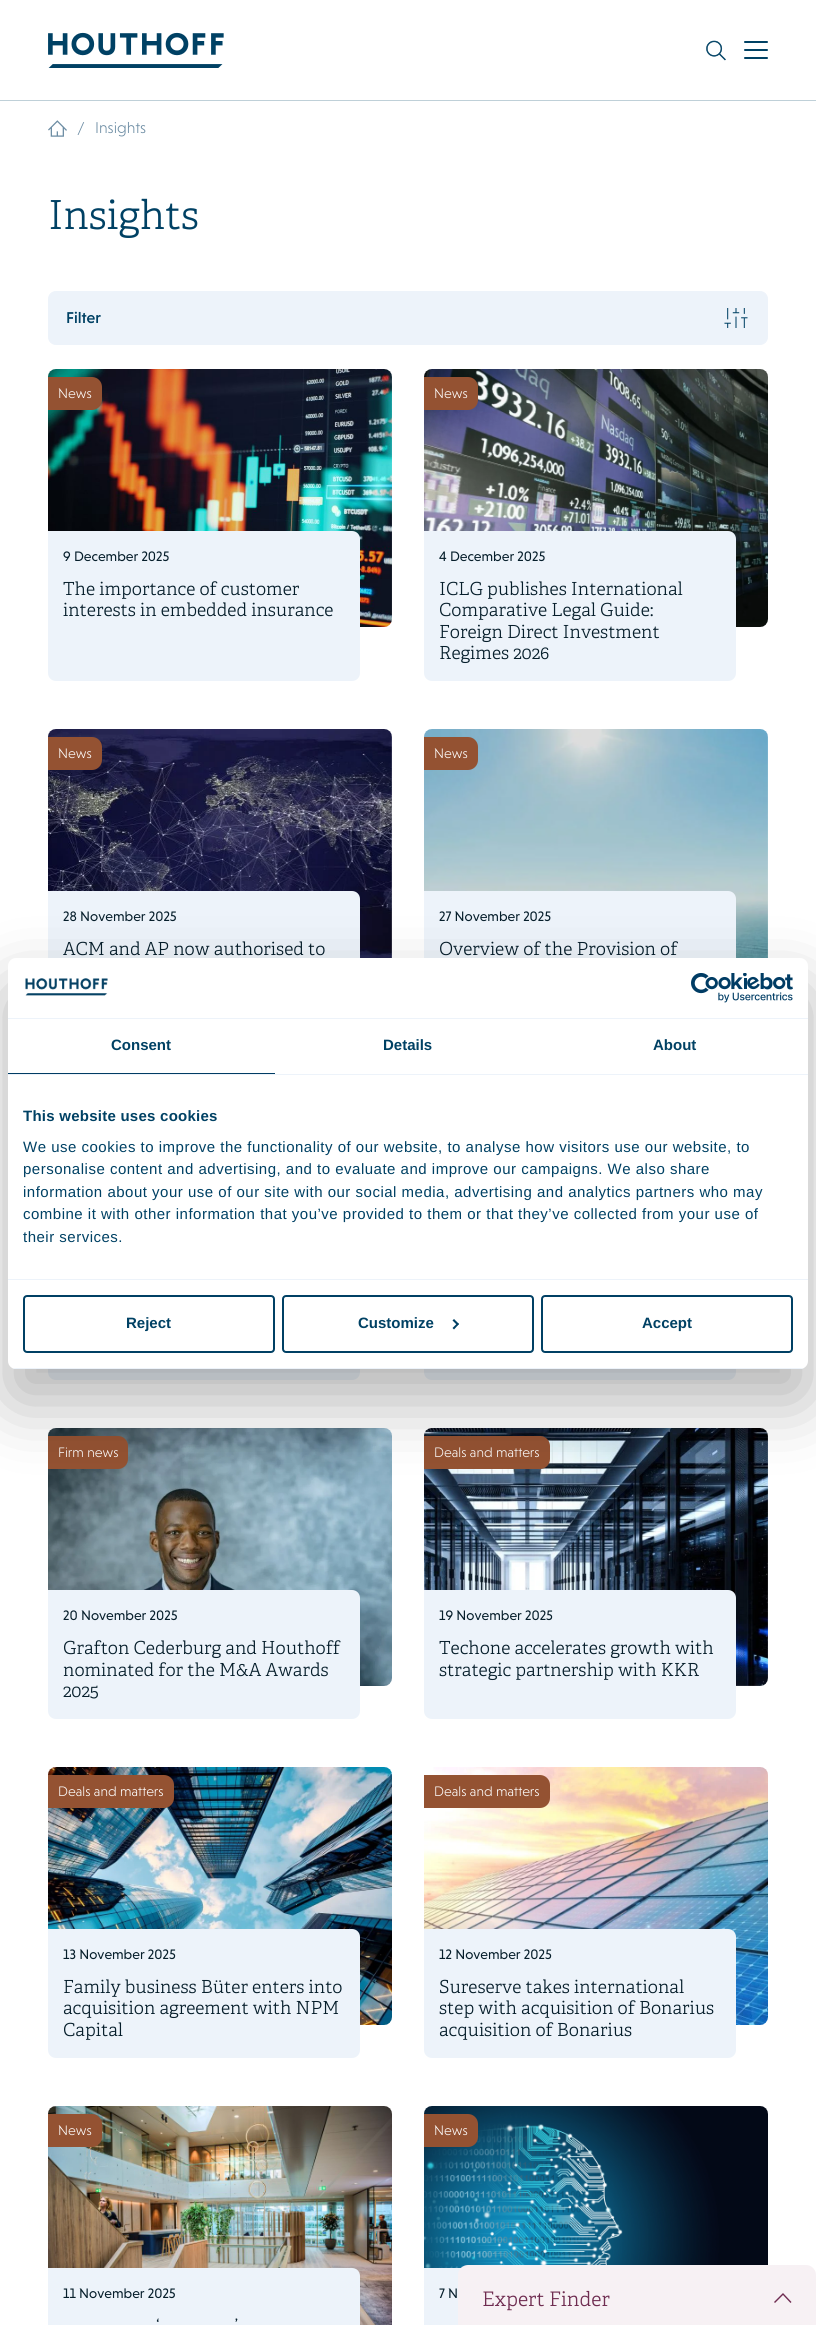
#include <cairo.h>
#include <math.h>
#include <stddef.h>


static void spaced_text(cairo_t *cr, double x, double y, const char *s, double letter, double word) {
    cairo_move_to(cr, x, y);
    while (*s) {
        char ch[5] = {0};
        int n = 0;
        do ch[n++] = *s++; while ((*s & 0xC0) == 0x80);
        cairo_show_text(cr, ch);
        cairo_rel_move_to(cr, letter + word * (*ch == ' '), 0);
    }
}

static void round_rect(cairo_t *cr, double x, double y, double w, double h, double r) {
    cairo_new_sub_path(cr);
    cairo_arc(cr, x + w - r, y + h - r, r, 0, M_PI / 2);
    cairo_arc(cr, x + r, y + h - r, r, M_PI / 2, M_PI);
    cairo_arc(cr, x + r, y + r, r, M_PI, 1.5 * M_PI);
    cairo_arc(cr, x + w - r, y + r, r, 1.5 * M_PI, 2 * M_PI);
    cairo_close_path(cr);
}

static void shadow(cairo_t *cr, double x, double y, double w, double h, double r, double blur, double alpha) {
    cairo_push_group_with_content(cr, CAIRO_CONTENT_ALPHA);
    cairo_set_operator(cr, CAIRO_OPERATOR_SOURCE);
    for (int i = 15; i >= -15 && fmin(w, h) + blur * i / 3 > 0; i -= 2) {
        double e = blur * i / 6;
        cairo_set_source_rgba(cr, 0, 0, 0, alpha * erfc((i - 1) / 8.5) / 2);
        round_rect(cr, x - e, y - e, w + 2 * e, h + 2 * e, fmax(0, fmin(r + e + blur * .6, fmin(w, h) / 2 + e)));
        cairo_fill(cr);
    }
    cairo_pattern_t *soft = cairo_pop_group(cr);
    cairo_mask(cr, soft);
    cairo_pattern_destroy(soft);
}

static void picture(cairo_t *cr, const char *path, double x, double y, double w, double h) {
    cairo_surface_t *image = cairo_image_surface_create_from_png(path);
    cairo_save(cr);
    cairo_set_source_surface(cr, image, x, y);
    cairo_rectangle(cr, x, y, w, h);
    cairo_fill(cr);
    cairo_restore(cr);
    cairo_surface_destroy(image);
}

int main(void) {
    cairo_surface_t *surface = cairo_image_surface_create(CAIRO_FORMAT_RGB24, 816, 2325);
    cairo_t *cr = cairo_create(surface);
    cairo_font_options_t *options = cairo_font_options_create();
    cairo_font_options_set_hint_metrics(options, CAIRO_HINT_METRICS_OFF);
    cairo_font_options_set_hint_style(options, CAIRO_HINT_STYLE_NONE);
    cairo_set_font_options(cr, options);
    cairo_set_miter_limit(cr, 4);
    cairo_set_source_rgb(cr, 1, 1, 1);
    cairo_paint(cr);
    cairo_set_source_rgb(cr, 0.749, 0.816, 0.847);
    cairo_rectangle(cr, 0, 100, 816, 1);
    cairo_fill(cr);
    picture(cr, "img1.png", 48, 32, 176, 36);
    picture(cr, "img2.png", 706, 40, 20, 21);
    cairo_set_source_rgb(cr, 0, 0.255, 0.392);
    round_rect(cr, 744, 49, 24, 2, 1);
    cairo_fill(cr);
    round_rect(cr, 744, 41, 24, 2, 1);
    cairo_fill(cr);
    round_rect(cr, 744, 57, 24, 2, 1);
    cairo_fill(cr);
    picture(cr, "img3.png", 48, 120, 19, 17);
    cairo_select_font_face(cr, "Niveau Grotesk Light", CAIRO_FONT_SLANT_NORMAL, CAIRO_FONT_WEIGHT_NORMAL);
    cairo_set_font_size(cr, 19);
    cairo_set_source_rgb(cr, 0.424, 0.549, 0.639);
    cairo_move_to(cr, 77, 135);
    cairo_show_text(cr, "/");
    cairo_set_font_size(cr, 16);
    cairo_move_to(cr, 95, 133);
    cairo_show_text(cr, "Insights");
    cairo_select_font_face(cr, "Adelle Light", CAIRO_FONT_SLANT_NORMAL, CAIRO_FONT_WEIGHT_NORMAL);
    cairo_set_font_size(cr, 40);
    cairo_set_source_rgb(cr, 0, 0.255, 0.392);
    cairo_move_to(cr, 48, 229);
    cairo_show_text(cr, "Insights");
    cairo_set_source_rgb(cr, 0.929, 0.953, 0.98);
    round_rect(cr, 48.5, 291.5, 719, 53, 7.5);
    cairo_fill_preserve(cr);
    cairo_set_line_width(cr, 1);
    cairo_stroke(cr);
    cairo_select_font_face(cr, "Niveau Grotesk Medium", CAIRO_FONT_SLANT_NORMAL, CAIRO_FONT_WEIGHT_NORMAL);
    cairo_set_font_size(cr, 16);
    cairo_set_source_rgb(cr, 0, 0.255, 0.392);
    cairo_move_to(cr, 66, 323);
    cairo_show_text(cr, "Filter");
    picture(cr, "img4.png", 724, 308, 24, 20);
    picture(cr, "img5.png", 48, 369, 344, 258);
    cairo_set_source_rgb(cr, 0.58, 0.322, 0.196);
    cairo_new_path(cr);
    cairo_move_to(cr, 48, 377);
    cairo_line_to(cr, 92, 377);
    cairo_curve_to(cr, 97.5, 377, 102, 381.5, 102, 387);
    cairo_line_to(cr, 102, 400);
    cairo_curve_to(cr, 102, 405.5, 97.5, 410, 92, 410);
    cairo_line_to(cr, 48, 410);
    cairo_close_path(cr);
    cairo_fill(cr);
    cairo_select_font_face(cr, "Niveau Grotesk Light", CAIRO_FONT_SLANT_NORMAL, CAIRO_FONT_WEIGHT_NORMAL);
    cairo_set_font_size(cr, 14);
    cairo_set_source_rgb(cr, 1, 1, 1);
    cairo_move_to(cr, 58, 398);
    cairo_show_text(cr, "News");
    cairo_set_source_rgb(cr, 0.929, 0.953, 0.98);
    cairo_new_path(cr);
    cairo_move_to(cr, 48, 531);
    cairo_line_to(cr, 352, 531);
    cairo_curve_to(cr, 356.5, 531, 360, 534.5, 360, 539);
    cairo_line_to(cr, 360, 673);
    cairo_curve_to(cr, 360, 677.5, 356.5, 681, 352, 681);
    cairo_line_to(cr, 56, 681);
    cairo_curve_to(cr, 51.5, 681, 48, 677.5, 48, 673);
    cairo_close_path(cr);
    cairo_fill(cr);
    cairo_select_font_face(cr, "Niveau Grotesk", CAIRO_FONT_SLANT_NORMAL, CAIRO_FONT_WEIGHT_NORMAL);
    cairo_set_source_rgb(cr, 0.024, 0.118, 0.169);
    cairo_move_to(cr, 63, 561);
    cairo_show_text(cr, "9 December 2025");
    cairo_select_font_face(cr, "Adelle Light", CAIRO_FONT_SLANT_NORMAL, CAIRO_FONT_WEIGHT_NORMAL);
    cairo_set_font_size(cr, 18);
    cairo_move_to(cr, 63, 595);
    cairo_show_text(cr, "The importance of customer");
    cairo_move_to(cr, 63, 616);
    cairo_show_text(cr, "interests in embedded insurance");
    picture(cr, "img6.png", 424, 369, 344, 258);
    cairo_set_source_rgb(cr, 0.58, 0.322, 0.196);
    cairo_new_path(cr);
    cairo_move_to(cr, 424, 377);
    cairo_line_to(cr, 468, 377);
    cairo_curve_to(cr, 473.5, 377, 478, 381.5, 478, 387);
    cairo_line_to(cr, 478, 400);
    cairo_curve_to(cr, 478, 405.5, 473.5, 410, 468, 410);
    cairo_line_to(cr, 424, 410);
    cairo_close_path(cr);
    cairo_fill(cr);
    cairo_select_font_face(cr, "Niveau Grotesk Light", CAIRO_FONT_SLANT_NORMAL, CAIRO_FONT_WEIGHT_NORMAL);
    cairo_set_font_size(cr, 14);
    cairo_set_source_rgb(cr, 1, 1, 1);
    cairo_move_to(cr, 434, 398);
    cairo_show_text(cr, "News");
    cairo_set_source_rgb(cr, 0.929, 0.953, 0.98);
    cairo_new_path(cr);
    cairo_move_to(cr, 424, 531);
    cairo_line_to(cr, 728, 531);
    cairo_curve_to(cr, 732.5, 531, 736, 534.5, 736, 539);
    cairo_line_to(cr, 736, 673);
    cairo_curve_to(cr, 736, 677.5, 732.5, 681, 728, 681);
    cairo_line_to(cr, 432, 681);
    cairo_curve_to(cr, 427.5, 681, 424, 677.5, 424, 673);
    cairo_close_path(cr);
    cairo_fill(cr);
    cairo_select_font_face(cr, "Niveau Grotesk", CAIRO_FONT_SLANT_NORMAL, CAIRO_FONT_WEIGHT_NORMAL);
    cairo_set_source_rgb(cr, 0.024, 0.118, 0.169);
    cairo_move_to(cr, 439, 561);
    cairo_show_text(cr, "4 December 2025");
    cairo_select_font_face(cr, "Adelle Light", CAIRO_FONT_SLANT_NORMAL, CAIRO_FONT_WEIGHT_NORMAL);
    cairo_set_font_size(cr, 18);
    cairo_move_to(cr, 439, 595);
    cairo_show_text(cr, "ICLG publishes International");
    cairo_move_to(cr, 439, 616);
    cairo_show_text(cr, "Comparative Legal Guide:");
    cairo_move_to(cr, 439, 638);
    cairo_show_text(cr, "Foreign Direct Investment");
    cairo_move_to(cr, 439, 659);
    cairo_show_text(cr, "Regimes 2026");
    picture(cr, "img7.png", 48, 729, 344, 229);
    cairo_set_source_rgb(cr, 0.58, 0.322, 0.196);
    cairo_new_path(cr);
    cairo_move_to(cr, 48, 737);
    cairo_line_to(cr, 92, 737);
    cairo_curve_to(cr, 97.5, 737, 102, 741.5, 102, 747);
    cairo_line_to(cr, 102, 760);
    cairo_curve_to(cr, 102, 765.5, 97.5, 770, 92, 770);
    cairo_line_to(cr, 48, 770);
    cairo_close_path(cr);
    cairo_fill(cr);
    cairo_select_font_face(cr, "Niveau Grotesk Light", CAIRO_FONT_SLANT_NORMAL, CAIRO_FONT_WEIGHT_NORMAL);
    cairo_set_font_size(cr, 14);
    cairo_set_source_rgb(cr, 1, 1, 1);
    cairo_move_to(cr, 58, 758);
    cairo_show_text(cr, "News");
    cairo_set_source_rgb(cr, 0.929, 0.953, 0.98);
    cairo_new_path(cr);
    cairo_move_to(cr, 48, 891);
    cairo_line_to(cr, 352, 891);
    cairo_curve_to(cr, 356.5, 891, 360, 894.5, 360, 899);
    cairo_line_to(cr, 360, 1033);
    cairo_curve_to(cr, 360, 1037.5, 356.5, 1041, 352, 1041);
    cairo_line_to(cr, 56, 1041);
    cairo_curve_to(cr, 51.5, 1041, 48, 1037.5, 48, 1033);
    cairo_close_path(cr);
    cairo_fill(cr);
    cairo_select_font_face(cr, "Niveau Grotesk", CAIRO_FONT_SLANT_NORMAL, CAIRO_FONT_WEIGHT_NORMAL);
    cairo_set_source_rgb(cr, 0.024, 0.118, 0.169);
    cairo_move_to(cr, 63, 921);
    cairo_show_text(cr, "28 November 2025");
    cairo_select_font_face(cr, "Adelle Light", CAIRO_FONT_SLANT_NORMAL, CAIRO_FONT_WEIGHT_NORMAL);
    cairo_set_font_size(cr, 18);
    cairo_move_to(cr, 63, 955);
    cairo_show_text(cr, "ACM and AP now authorised to");
    picture(cr, "img8.png", 424, 729, 344, 229);
    cairo_set_source_rgb(cr, 0.58, 0.322, 0.196);
    cairo_new_path(cr);
    cairo_move_to(cr, 424, 737);
    cairo_line_to(cr, 468, 737);
    cairo_curve_to(cr, 473.5, 737, 478, 741.5, 478, 747);
    cairo_line_to(cr, 478, 760);
    cairo_curve_to(cr, 478, 765.5, 473.5, 770, 468, 770);
    cairo_line_to(cr, 424, 770);
    cairo_close_path(cr);
    cairo_fill(cr);
    cairo_select_font_face(cr, "Niveau Grotesk Light", CAIRO_FONT_SLANT_NORMAL, CAIRO_FONT_WEIGHT_NORMAL);
    cairo_set_font_size(cr, 14);
    cairo_set_source_rgb(cr, 1, 1, 1);
    cairo_move_to(cr, 434, 758);
    cairo_show_text(cr, "News");
    cairo_set_source_rgb(cr, 0.929, 0.953, 0.98);
    cairo_new_path(cr);
    cairo_move_to(cr, 424, 891);
    cairo_line_to(cr, 728, 891);
    cairo_curve_to(cr, 732.5, 891, 736, 894.5, 736, 899);
    cairo_line_to(cr, 736, 1033);
    cairo_curve_to(cr, 736, 1037.5, 732.5, 1041, 728, 1041);
    cairo_line_to(cr, 432, 1041);
    cairo_curve_to(cr, 427.5, 1041, 424, 1037.5, 424, 1033);
    cairo_close_path(cr);
    cairo_fill(cr);
    cairo_select_font_face(cr, "Niveau Grotesk", CAIRO_FONT_SLANT_NORMAL, CAIRO_FONT_WEIGHT_NORMAL);
    cairo_set_source_rgb(cr, 0.024, 0.118, 0.169);
    cairo_move_to(cr, 439, 921);
    cairo_show_text(cr, "27 November 2025");
    cairo_select_font_face(cr, "Adelle Light", CAIRO_FONT_SLANT_NORMAL, CAIRO_FONT_WEIGHT_NORMAL);
    cairo_set_font_size(cr, 18);
    cairo_move_to(cr, 439, 955);
    cairo_show_text(cr, "Overview of the Provision of");
    cairo_set_source_rgb(cr, 0.929, 0.953, 0.98);
    cairo_new_path(cr);
    cairo_move_to(cr, 48, 1251);
    cairo_line_to(cr, 352, 1251);
    cairo_curve_to(cr, 356.5, 1251, 360, 1254.5, 360, 1259);
    cairo_line_to(cr, 360, 1372);
    cairo_curve_to(cr, 360, 1376.5, 356.5, 1380, 352, 1380);
    cairo_line_to(cr, 56, 1380);
    cairo_curve_to(cr, 51.5, 1380, 48, 1376.5, 48, 1372);
    cairo_close_path(cr);
    cairo_fill(cr);
    cairo_new_path(cr);
    cairo_move_to(cr, 424, 1251);
    cairo_line_to(cr, 728, 1251);
    cairo_curve_to(cr, 732.5, 1251, 736, 1254.5, 736, 1259);
    cairo_line_to(cr, 736, 1372);
    cairo_curve_to(cr, 736, 1376.5, 732.5, 1380, 728, 1380);
    cairo_line_to(cr, 432, 1380);
    cairo_curve_to(cr, 427.5, 1380, 424, 1376.5, 424, 1372);
    cairo_close_path(cr);
    cairo_fill(cr);
    picture(cr, "img9.png", 48, 1428, 344, 258);
    cairo_set_source_rgb(cr, 0.58, 0.322, 0.196);
    cairo_new_path(cr);
    cairo_move_to(cr, 48, 1436);
    cairo_line_to(cr, 118, 1436);
    cairo_curve_to(cr, 123.5, 1436, 128, 1440.5, 128, 1446);
    cairo_line_to(cr, 128, 1459);
    cairo_curve_to(cr, 128, 1464.5, 123.5, 1469, 118, 1469);
    cairo_line_to(cr, 48, 1469);
    cairo_close_path(cr);
    cairo_fill(cr);
    cairo_select_font_face(cr, "Niveau Grotesk Light", CAIRO_FONT_SLANT_NORMAL, CAIRO_FONT_WEIGHT_NORMAL);
    cairo_set_font_size(cr, 14);
    cairo_set_source_rgb(cr, 1, 1, 1);
    cairo_move_to(cr, 58, 1457);
    cairo_show_text(cr, "Firm news");
    cairo_set_source_rgb(cr, 0.929, 0.953, 0.98);
    cairo_new_path(cr);
    cairo_move_to(cr, 48, 1590);
    cairo_line_to(cr, 352, 1590);
    cairo_curve_to(cr, 356.5, 1590, 360, 1593.5, 360, 1598);
    cairo_line_to(cr, 360, 1711);
    cairo_curve_to(cr, 360, 1715.5, 356.5, 1719, 352, 1719);
    cairo_line_to(cr, 56, 1719);
    cairo_curve_to(cr, 51.5, 1719, 48, 1715.5, 48, 1711);
    cairo_close_path(cr);
    cairo_fill(cr);
    cairo_select_font_face(cr, "Niveau Grotesk", CAIRO_FONT_SLANT_NORMAL, CAIRO_FONT_WEIGHT_NORMAL);
    cairo_set_source_rgb(cr, 0.024, 0.118, 0.169);
    cairo_move_to(cr, 63, 1620);
    cairo_show_text(cr, "20 November 2025");
    cairo_select_font_face(cr, "Adelle Light", CAIRO_FONT_SLANT_NORMAL, CAIRO_FONT_WEIGHT_NORMAL);
    cairo_set_font_size(cr, 18);
    cairo_move_to(cr, 63, 1654);
    cairo_show_text(cr, "Grafton Cederburg and Houthoff");
    cairo_move_to(cr, 63, 1676);
    cairo_show_text(cr, "nominated for the M&A Awards");
    cairo_move_to(cr, 63, 1697);
    cairo_show_text(cr, "2025");
    picture(cr, "img10.png", 424, 1428, 344, 258);
    cairo_set_source_rgb(cr, 0.58, 0.322, 0.196);
    cairo_new_path(cr);
    cairo_move_to(cr, 424, 1436);
    cairo_line_to(cr, 540, 1436);
    cairo_curve_to(cr, 545.5, 1436, 550, 1440.5, 550, 1446);
    cairo_line_to(cr, 550, 1459);
    cairo_curve_to(cr, 550, 1464.5, 545.5, 1469, 540, 1469);
    cairo_line_to(cr, 424, 1469);
    cairo_close_path(cr);
    cairo_fill(cr);
    cairo_select_font_face(cr, "Niveau Grotesk Light", CAIRO_FONT_SLANT_NORMAL, CAIRO_FONT_WEIGHT_NORMAL);
    cairo_set_font_size(cr, 14);
    cairo_set_source_rgb(cr, 1, 1, 1);
    cairo_move_to(cr, 434, 1457);
    cairo_show_text(cr, "Deals and matters");
    cairo_set_source_rgb(cr, 0.929, 0.953, 0.98);
    cairo_new_path(cr);
    cairo_move_to(cr, 424, 1590);
    cairo_line_to(cr, 728, 1590);
    cairo_curve_to(cr, 732.5, 1590, 736, 1593.5, 736, 1598);
    cairo_line_to(cr, 736, 1711);
    cairo_curve_to(cr, 736, 1715.5, 732.5, 1719, 728, 1719);
    cairo_line_to(cr, 432, 1719);
    cairo_curve_to(cr, 427.5, 1719, 424, 1715.5, 424, 1711);
    cairo_close_path(cr);
    cairo_fill(cr);
    cairo_select_font_face(cr, "Niveau Grotesk", CAIRO_FONT_SLANT_NORMAL, CAIRO_FONT_WEIGHT_NORMAL);
    cairo_set_source_rgb(cr, 0.024, 0.118, 0.169);
    cairo_move_to(cr, 439, 1620);
    cairo_show_text(cr, "19 November 2025");
    cairo_select_font_face(cr, "Adelle Light", CAIRO_FONT_SLANT_NORMAL, CAIRO_FONT_WEIGHT_NORMAL);
    cairo_set_font_size(cr, 18);
    cairo_move_to(cr, 439, 1654);
    cairo_show_text(cr, "Techone accelerates growth with");
    cairo_move_to(cr, 439, 1676);
    cairo_show_text(cr, "strategic partnership with KKR");
    picture(cr, "img11.png", 48, 1767, 344, 258);
    cairo_set_source_rgb(cr, 0.58, 0.322, 0.196);
    cairo_new_path(cr);
    cairo_move_to(cr, 48, 1775);
    cairo_line_to(cr, 164, 1775);
    cairo_curve_to(cr, 169.5, 1775, 174, 1779.5, 174, 1785);
    cairo_line_to(cr, 174, 1798);
    cairo_curve_to(cr, 174, 1803.5, 169.5, 1808, 164, 1808);
    cairo_line_to(cr, 48, 1808);
    cairo_close_path(cr);
    cairo_fill(cr);
    cairo_select_font_face(cr, "Niveau Grotesk Light", CAIRO_FONT_SLANT_NORMAL, CAIRO_FONT_WEIGHT_NORMAL);
    cairo_set_font_size(cr, 14);
    cairo_set_source_rgb(cr, 1, 1, 1);
    cairo_move_to(cr, 58, 1796);
    cairo_show_text(cr, "Deals and matters");
    cairo_set_source_rgb(cr, 0.929, 0.953, 0.98);
    cairo_new_path(cr);
    cairo_move_to(cr, 48, 1929);
    cairo_line_to(cr, 352, 1929);
    cairo_curve_to(cr, 356.5, 1929, 360, 1932.5, 360, 1937);
    cairo_line_to(cr, 360, 2050);
    cairo_curve_to(cr, 360, 2054.5, 356.5, 2058, 352, 2058);
    cairo_line_to(cr, 56, 2058);
    cairo_curve_to(cr, 51.5, 2058, 48, 2054.5, 48, 2050);
    cairo_close_path(cr);
    cairo_fill(cr);
    cairo_select_font_face(cr, "Niveau Grotesk", CAIRO_FONT_SLANT_NORMAL, CAIRO_FONT_WEIGHT_NORMAL);
    cairo_set_source_rgb(cr, 0.024, 0.118, 0.169);
    cairo_move_to(cr, 63, 1959);
    cairo_show_text(cr, "13 November 2025");
    cairo_select_font_face(cr, "Adelle Light", CAIRO_FONT_SLANT_NORMAL, CAIRO_FONT_WEIGHT_NORMAL);
    cairo_set_font_size(cr, 18);
    cairo_move_to(cr, 63, 1993);
    cairo_show_text(cr, "Family business Büter enters into");
    cairo_move_to(cr, 63, 2014);
    cairo_show_text(cr, "acquisition agreement with NPM");
    cairo_move_to(cr, 63, 2036);
    cairo_show_text(cr, "Capital");
    picture(cr, "img12.png", 424, 1767, 344, 258);
    cairo_set_source_rgb(cr, 0.58, 0.322, 0.196);
    cairo_new_path(cr);
    cairo_move_to(cr, 424, 1775);
    cairo_line_to(cr, 540, 1775);
    cairo_curve_to(cr, 545.5, 1775, 550, 1779.5, 550, 1785);
    cairo_line_to(cr, 550, 1798);
    cairo_curve_to(cr, 550, 1803.5, 545.5, 1808, 540, 1808);
    cairo_line_to(cr, 424, 1808);
    cairo_close_path(cr);
    cairo_fill(cr);
    cairo_select_font_face(cr, "Niveau Grotesk Light", CAIRO_FONT_SLANT_NORMAL, CAIRO_FONT_WEIGHT_NORMAL);
    cairo_set_font_size(cr, 14);
    cairo_set_source_rgb(cr, 1, 1, 1);
    cairo_move_to(cr, 434, 1796);
    cairo_show_text(cr, "Deals and matters");
    cairo_set_source_rgb(cr, 0.929, 0.953, 0.98);
    cairo_new_path(cr);
    cairo_move_to(cr, 424, 1929);
    cairo_line_to(cr, 728, 1929);
    cairo_curve_to(cr, 732.5, 1929, 736, 1932.5, 736, 1937);
    cairo_line_to(cr, 736, 2050);
    cairo_curve_to(cr, 736, 2054.5, 732.5, 2058, 728, 2058);
    cairo_line_to(cr, 432, 2058);
    cairo_curve_to(cr, 427.5, 2058, 424, 2054.5, 424, 2050);
    cairo_close_path(cr);
    cairo_fill(cr);
    cairo_select_font_face(cr, "Niveau Grotesk", CAIRO_FONT_SLANT_NORMAL, CAIRO_FONT_WEIGHT_NORMAL);
    cairo_set_source_rgb(cr, 0.024, 0.118, 0.169);
    cairo_move_to(cr, 439, 1959);
    cairo_show_text(cr, "12 November 2025");
    cairo_select_font_face(cr, "Adelle Light", CAIRO_FONT_SLANT_NORMAL, CAIRO_FONT_WEIGHT_NORMAL);
    cairo_set_font_size(cr, 18);
    cairo_move_to(cr, 439, 1993);
    cairo_show_text(cr, "Sureserve takes international");
    cairo_move_to(cr, 439, 2014);
    cairo_show_text(cr, "step with acquisition of Bonarius");
    cairo_move_to(cr, 439, 2036);
    cairo_show_text(cr, "acquisition of Bonarius");
    picture(cr, "img13.png", 48, 2106, 344, 219);
    cairo_set_source_rgb(cr, 0.58, 0.322, 0.196);
    cairo_new_path(cr);
    cairo_move_to(cr, 48, 2114);
    cairo_line_to(cr, 92, 2114);
    cairo_curve_to(cr, 97.5, 2114, 102, 2118.5, 102, 2124);
    cairo_line_to(cr, 102, 2137);
    cairo_curve_to(cr, 102, 2142.5, 97.5, 2147, 92, 2147);
    cairo_line_to(cr, 48, 2147);
    cairo_close_path(cr);
    cairo_fill(cr);
    cairo_select_font_face(cr, "Niveau Grotesk Light", CAIRO_FONT_SLANT_NORMAL, CAIRO_FONT_WEIGHT_NORMAL);
    cairo_set_font_size(cr, 14);
    cairo_set_source_rgb(cr, 1, 1, 1);
    cairo_move_to(cr, 58, 2135);
    cairo_show_text(cr, "News");
    cairo_set_source_rgb(cr, 0.929, 0.953, 0.98);
    cairo_new_path(cr);
    cairo_move_to(cr, 48, 2268);
    cairo_line_to(cr, 352, 2268);
    cairo_curve_to(cr, 356.5, 2268, 360, 2271.5, 360, 2276);
    cairo_line_to(cr, 360, 2325);
    cairo_curve_to(cr, 360, 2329.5, 356.5, 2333, 352, 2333);
    cairo_line_to(cr, 56, 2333);
    cairo_curve_to(cr, 51.5, 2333, 48, 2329.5, 48, 2325);
    cairo_close_path(cr);
    cairo_fill(cr);
    cairo_select_font_face(cr, "Niveau Grotesk", CAIRO_FONT_SLANT_NORMAL, CAIRO_FONT_WEIGHT_NORMAL);
    cairo_set_source_rgb(cr, 0.024, 0.118, 0.169);
    cairo_move_to(cr, 63, 2298);
    cairo_show_text(cr, "11 November 2025");
    cairo_select_font_face(cr, "Adelle Light", CAIRO_FONT_SLANT_NORMAL, CAIRO_FONT_WEIGHT_NORMAL);
    cairo_set_font_size(cr, 18);
    cairo_move_to(cr, 156, 2332);
    cairo_show_text(cr, "‘");
    cairo_move_to(cr, 235, 2332);
    cairo_show_text(cr, "’");
    picture(cr, "img14.png", 424, 2106, 344, 162);
    cairo_set_source_rgb(cr, 0.58, 0.322, 0.196);
    cairo_new_path(cr);
    cairo_move_to(cr, 424, 2114);
    cairo_line_to(cr, 468, 2114);
    cairo_curve_to(cr, 473.5, 2114, 478, 2118.5, 478, 2124);
    cairo_line_to(cr, 478, 2137);
    cairo_curve_to(cr, 478, 2142.5, 473.5, 2147, 468, 2147);
    cairo_line_to(cr, 424, 2147);
    cairo_close_path(cr);
    cairo_fill(cr);
    cairo_select_font_face(cr, "Niveau Grotesk Light", CAIRO_FONT_SLANT_NORMAL, CAIRO_FONT_WEIGHT_NORMAL);
    cairo_set_font_size(cr, 14);
    cairo_set_source_rgb(cr, 1, 1, 1);
    cairo_move_to(cr, 434, 2135);
    cairo_show_text(cr, "News");
    cairo_set_source_rgb(cr, 0.929, 0.953, 0.98);
    cairo_rectangle(cr, 424, 2268, 37, 57);
    cairo_fill(cr);
    cairo_select_font_face(cr, "Niveau Grotesk", CAIRO_FONT_SLANT_NORMAL, CAIRO_FONT_WEIGHT_NORMAL);
    cairo_set_source_rgb(cr, 0.024, 0.118, 0.169);
    cairo_move_to(cr, 439, 2298);
    cairo_show_text(cr, "7 N");
    cairo_set_source_rgb(cr, 0, 0, 0);
    shadow(cr, 8, 990, 800, 411, 8, 34, 0.3);
    cairo_set_source_rgb(cr, 1, 1, 1);
    round_rect(cr, 8, 958, 800, 411, 8);
    cairo_fill(cr);
    cairo_set_source_rgb(cr, 0.929, 0.953, 0.98);
    cairo_rectangle(cr, 8, 1018, 800, 1);
    cairo_fill(cr);
    picture(cr, "img15.png", 25, 978, 83, 18);
    picture(cr, "img16.png", 691, 973, 102, 30);
    cairo_rectangle(cr, 8, 1074, 800, 1);
    cairo_fill(cr);
    cairo_set_source_rgb(cr, 0, 0.235, 0.392);
    cairo_rectangle(cr, 8, 1073, 267, 1);
    cairo_fill(cr);
    cairo_select_font_face(cr, "Liberation Sans", CAIRO_FONT_SLANT_NORMAL, CAIRO_FONT_WEIGHT_BOLD);
    cairo_set_font_size(cr, 15);
    cairo_set_source_rgb(cr, 0, 0.255, 0.392);
    cairo_move_to(cr, 111, 1050);
    cairo_show_text(cr, "Consent");
    cairo_move_to(cr, 383, 1050);
    cairo_show_text(cr, "Details");
    cairo_move_to(cr, 653, 1050);
    cairo_show_text(cr, "About");
    cairo_set_source_rgb(cr, 0.929, 0.953, 0.98);
    cairo_rectangle(cr, 8, 1279, 800, 1);
    cairo_fill(cr);
    cairo_set_source_rgb(cr, 0, 0.255, 0.392);
    spaced_text(cr, 23, 1121, "This website uses cookies", 0.25, 0);
    cairo_select_font_face(cr, "Liberation Sans", CAIRO_FONT_SLANT_NORMAL, CAIRO_FONT_WEIGHT_NORMAL);
    spaced_text(cr, 23, 1152, "We use cookies to improve the functionality of our website, to analyse how visitors use our website, to", 0.5, 0);
    spaced_text(cr, 23, 1174, "personalise content and advertising, and to evaluate and improve our campaigns. We also share", 0.5, 0);
    spaced_text(cr, 23, 1197, "information about your use of our site with our social media, advertising and analytics partners who may", 0.5, 0);
    spaced_text(cr, 23, 1219, "combine it with other information that you’ve provided to them or that they’ve collected from your use of", 0.5, 0);
    spaced_text(cr, 23, 1242, "their services.", 0.5, 0);
    cairo_save(cr);
    round_rect(cr, 8, 958, 800, 411, 8);
    cairo_clip(cr);
    cairo_set_source_rgb(cr, 0.929, 0.953, 0.98);
    cairo_rectangle(cr, 8, 1368, 800, 1);
    cairo_fill(cr);
    cairo_restore(cr);
    round_rect(cr, 24, 1296, 250, 56, 3);
    cairo_set_source_rgb(cr, 0, 0.251, 0.392);
    cairo_set_line_width(cr, 2);
    cairo_stroke(cr);
    cairo_select_font_face(cr, "Liberation Sans", CAIRO_FONT_SLANT_NORMAL, CAIRO_FONT_WEIGHT_BOLD);
    cairo_set_source_rgb(cr, 0, 0.255, 0.392);
    cairo_move_to(cr, 126, 1328);
    cairo_show_text(cr, "Reject");
    round_rect(cr, 283, 1296, 250, 56, 3);
    cairo_set_source_rgb(cr, 0, 0.251, 0.392);
    cairo_stroke(cr);
    cairo_set_source_rgb(cr, 0, 0.255, 0.392);
    cairo_move_to(cr, 358, 1328);
    cairo_show_text(cr, "Customize");
    cairo_set_source_rgb(cr, 0, 0.251, 0.392);
    cairo_new_path(cr);
    cairo_move_to(cr, 454, 1319);
    cairo_line_to(cr, 459, 1324);
    cairo_line_to(cr, 457.5, 1325.5);
    cairo_line_to(cr, 452.5, 1320.5);
    cairo_close_path(cr);
    cairo_fill(cr);
    cairo_new_path(cr);
    cairo_move_to(cr, 457.5, 1323);
    cairo_line_to(cr, 459, 1324);
    cairo_line_to(cr, 454, 1329.5);
    cairo_line_to(cr, 452.5, 1328);
    cairo_close_path(cr);
    cairo_fill(cr);
    round_rect(cr, 542, 1296, 250, 56, 3);
    cairo_stroke(cr);
    cairo_set_source_rgb(cr, 0, 0.255, 0.392);
    cairo_move_to(cr, 642, 1328);
    cairo_show_text(cr, "Accept");
    cairo_set_source_rgb(cr, 0.965, 0.945, 0.957);
    cairo_new_path(cr);
    cairo_move_to(cr, 468, 2265);
    cairo_line_to(cr, 806, 2265);
    cairo_curve_to(cr, 811.5, 2265, 816, 2269.5, 816, 2275);
    cairo_line_to(cr, 816, 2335);
    cairo_line_to(cr, 458, 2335);
    cairo_line_to(cr, 458, 2275);
    cairo_curve_to(cr, 458, 2269.5, 462.5, 2265, 468, 2265);
    cairo_close_path(cr);
    cairo_fill(cr);
    cairo_select_font_face(cr, "Adelle Light", CAIRO_FONT_SLANT_NORMAL, CAIRO_FONT_WEIGHT_NORMAL);
    cairo_set_font_size(cr, 20);
    cairo_set_source_rgb(cr, 0.435, 0.176, 0.318);
    cairo_move_to(cr, 482, 2306);
    cairo_show_text(cr, "Expert Finder");
    cairo_new_path(cr);
    cairo_move_to(cr, 783, 2295);
    cairo_line_to(cr, 775, 2303);
    cairo_line_to(cr, 774, 2302);
    cairo_line_to(cr, 783, 2293);
    cairo_line_to(cr, 791.5, 2302);
    cairo_line_to(cr, 790.5, 2303);
    cairo_close_path(cr);
    cairo_fill(cr);
    cairo_surface_write_to_png(surface, "page.png");
    cairo_font_options_destroy(options);
    cairo_destroy(cr);
    cairo_surface_destroy(surface);
    return 0;
}
